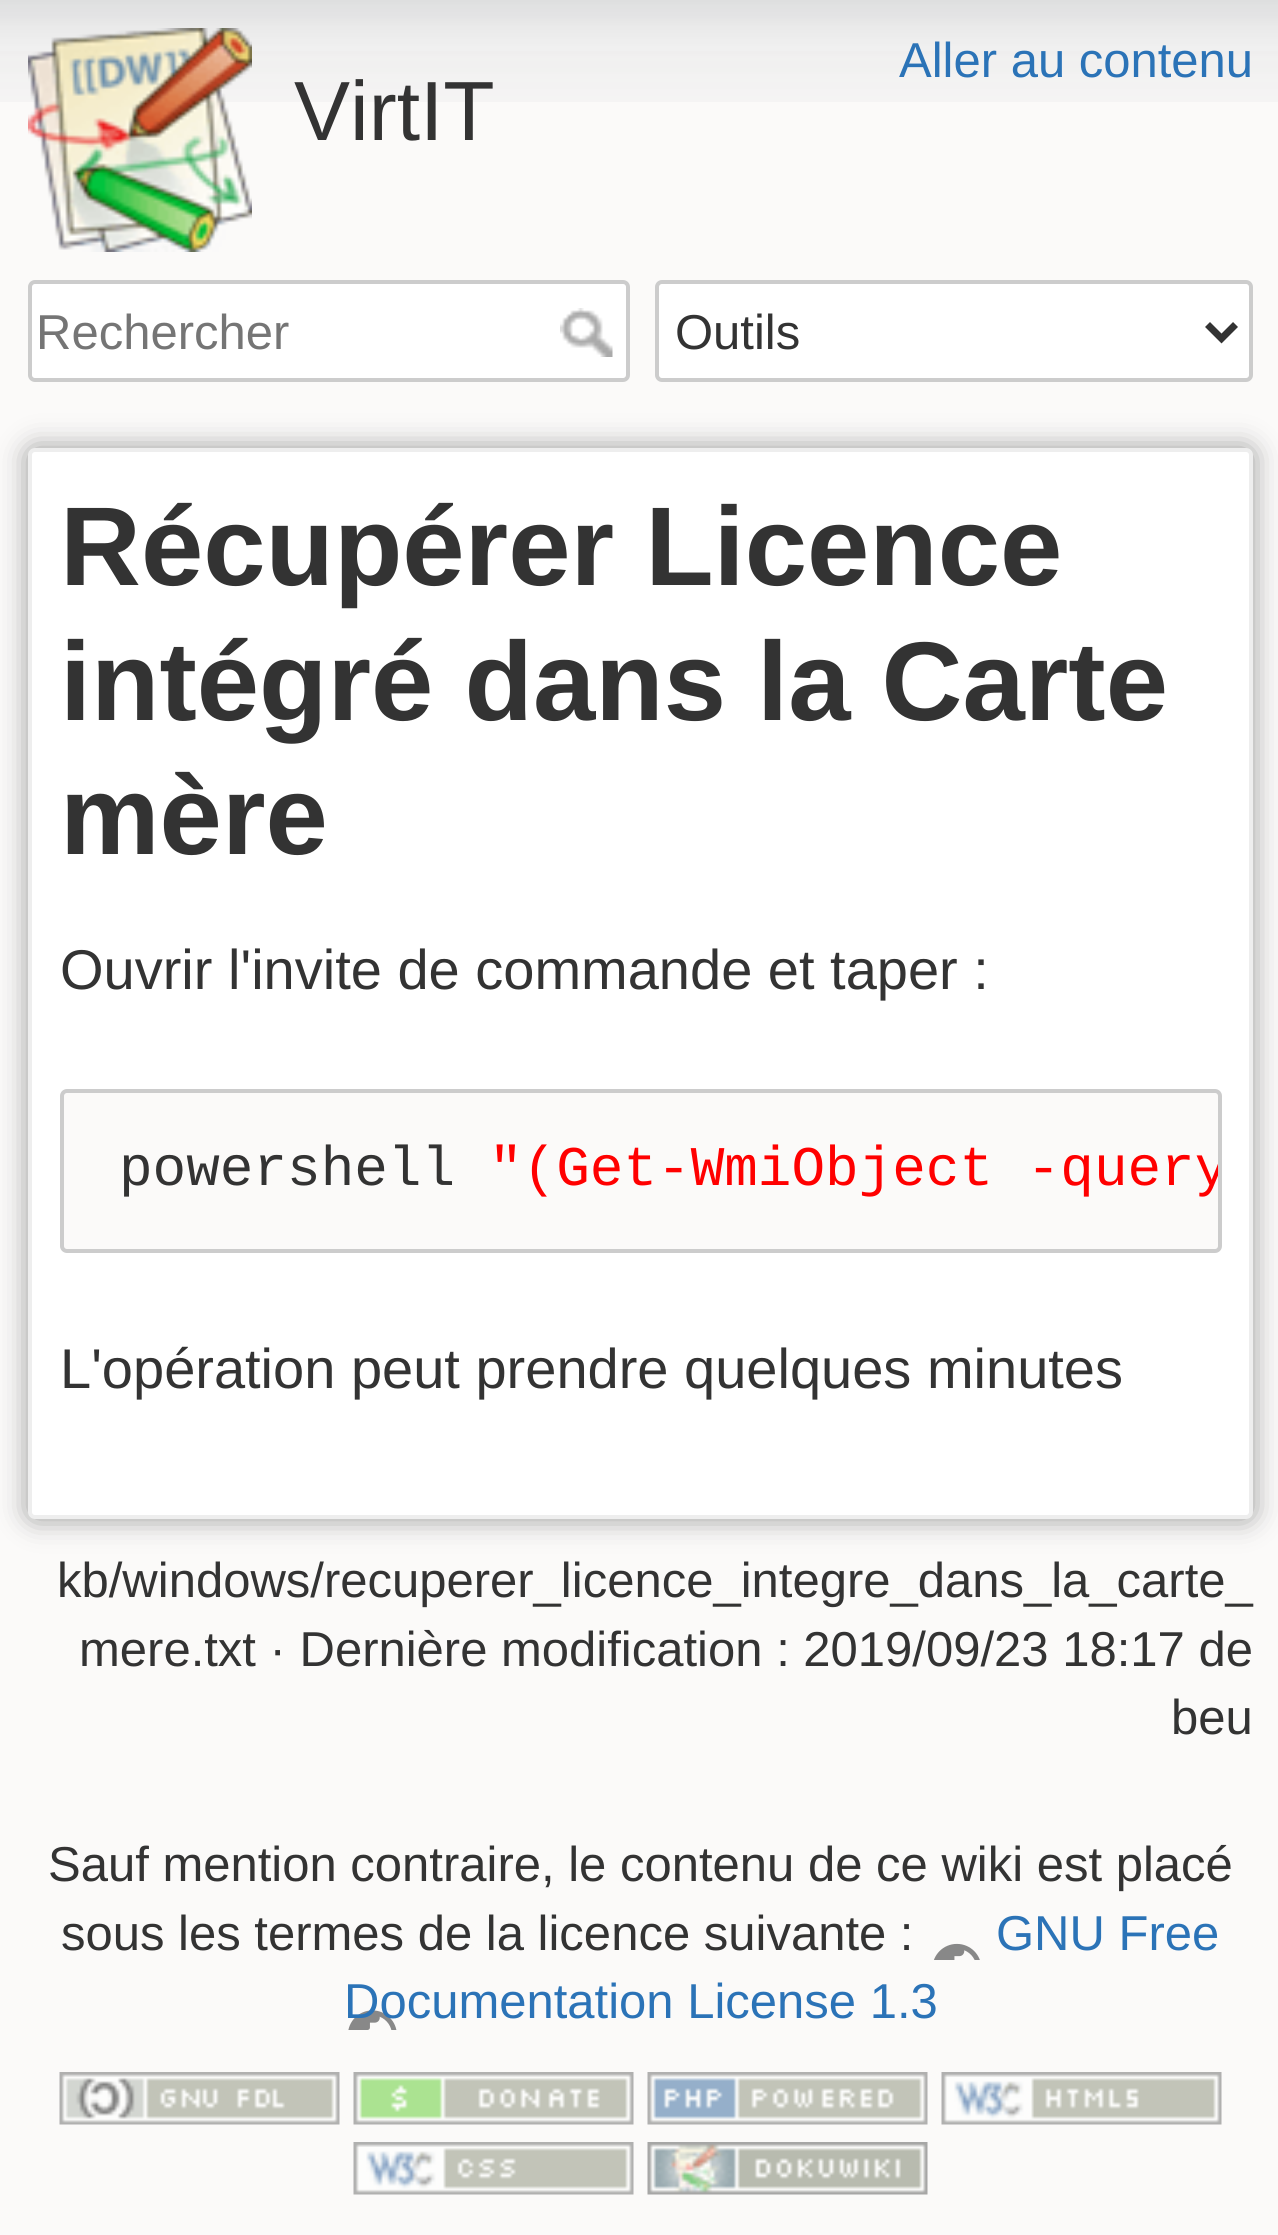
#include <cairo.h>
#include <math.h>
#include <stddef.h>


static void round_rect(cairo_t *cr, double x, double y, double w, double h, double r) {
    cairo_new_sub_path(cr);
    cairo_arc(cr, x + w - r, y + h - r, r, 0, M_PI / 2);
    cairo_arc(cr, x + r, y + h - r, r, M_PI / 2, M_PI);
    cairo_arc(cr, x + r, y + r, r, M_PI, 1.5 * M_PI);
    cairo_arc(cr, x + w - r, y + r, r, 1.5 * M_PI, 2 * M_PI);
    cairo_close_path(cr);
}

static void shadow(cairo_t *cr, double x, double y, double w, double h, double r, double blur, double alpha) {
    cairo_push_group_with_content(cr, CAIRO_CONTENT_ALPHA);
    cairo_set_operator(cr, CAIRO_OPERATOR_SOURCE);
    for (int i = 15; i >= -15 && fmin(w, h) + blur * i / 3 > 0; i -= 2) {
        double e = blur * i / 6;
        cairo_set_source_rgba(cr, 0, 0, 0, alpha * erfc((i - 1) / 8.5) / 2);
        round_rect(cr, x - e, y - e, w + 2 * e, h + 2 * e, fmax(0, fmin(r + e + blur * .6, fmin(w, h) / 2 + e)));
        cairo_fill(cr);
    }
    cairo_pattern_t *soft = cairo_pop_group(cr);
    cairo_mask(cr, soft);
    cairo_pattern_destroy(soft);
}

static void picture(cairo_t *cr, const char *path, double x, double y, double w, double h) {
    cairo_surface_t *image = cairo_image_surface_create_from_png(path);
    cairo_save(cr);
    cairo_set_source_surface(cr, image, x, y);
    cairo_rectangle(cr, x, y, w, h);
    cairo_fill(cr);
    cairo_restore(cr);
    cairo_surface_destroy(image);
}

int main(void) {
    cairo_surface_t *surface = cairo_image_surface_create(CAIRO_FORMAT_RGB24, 1278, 2235);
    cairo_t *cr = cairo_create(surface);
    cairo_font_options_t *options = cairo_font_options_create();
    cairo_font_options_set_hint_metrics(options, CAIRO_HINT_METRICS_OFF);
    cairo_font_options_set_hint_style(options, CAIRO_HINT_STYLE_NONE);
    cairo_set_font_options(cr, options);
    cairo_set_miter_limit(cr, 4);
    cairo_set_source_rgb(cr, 0.984, 0.98, 0.976);
    cairo_paint(cr);
    picture(cr, "img1.png", 0, 0, 1278, 102);
    cairo_select_font_face(cr, "Liberation Sans", CAIRO_FONT_SLANT_NORMAL, CAIRO_FONT_WEIGHT_NORMAL);
    cairo_set_font_size(cr, 49);
    cairo_set_source_rgb(cr, 0.169, 0.451, 0.718);
    cairo_move_to(cr, 899, 77);
    cairo_show_text(cr, "Aller au contenu");
    picture(cr, "img2.png", 28, 28, 224, 224);
    cairo_set_font_size(cr, 84);
    cairo_set_source_rgb(cr, 0.2, 0.2, 0.2);
    cairo_move_to(cr, 294, 140);
    cairo_show_text(cr, "VirtIT");
    cairo_set_source_rgb(cr, 1, 1, 1);
    round_rect(cr, 30, 282, 598, 98, 5);
    cairo_fill_preserve(cr);
    cairo_set_source_rgb(cr, 0.8, 0.8, 0.8);
    cairo_set_line_width(cr, 4);
    cairo_stroke(cr);
    cairo_set_font_size(cr, 49);
    cairo_set_source_rgb(cr, 0.459, 0.459, 0.459);
    cairo_move_to(cr, 36, 349);
    cairo_show_text(cr, "Rechercher");
    picture(cr, "img3.png", 560, 308, 53, 49);
    cairo_set_source_rgb(cr, 1, 1, 1);
    round_rect(cr, 657, 282, 594, 98, 5);
    cairo_fill_preserve(cr);
    cairo_set_source_rgb(cr, 0.8, 0.8, 0.8);
    cairo_stroke(cr);
    cairo_new_path(cr);
    cairo_move_to(cr, 1207.5, 324.5);
    cairo_line_to(cr, 1221.5, 338.5);
    cairo_line_to(cr, 1235.5, 324.5);
    cairo_set_source_rgb(cr, 0.2, 0.2, 0.2);
    cairo_set_line_width(cr, 7);
    cairo_stroke(cr);
    cairo_move_to(cr, 675, 349);
    cairo_show_text(cr, "Outils");
    cairo_set_source_rgb(cr, 0.6, 0.6, 0.6);
    shadow(cr, 28, 448, 1225, 1071, 7, 14, 1);
    cairo_set_source_rgb(cr, 1, 1, 1);
    round_rect(cr, 30, 450, 1221, 1067, 5);
    cairo_fill_preserve(cr);
    cairo_set_source_rgb(cr, 0.933, 0.933, 0.933);
    cairo_set_line_width(cr, 4);
    cairo_stroke(cr);
    cairo_select_font_face(cr, "Liberation Sans", CAIRO_FONT_SLANT_NORMAL, CAIRO_FONT_WEIGHT_BOLD);
    cairo_set_font_size(cr, 112);
    cairo_set_source_rgb(cr, 0.2, 0.2, 0.2);
    cairo_move_to(cr, 60, 585);
    cairo_show_text(cr, "Récupérer Licence");
    cairo_move_to(cr, 60, 720);
    cairo_show_text(cr, "intégré dans la Carte");
    cairo_move_to(cr, 60, 854);
    cairo_show_text(cr, "mère");
    cairo_select_font_face(cr, "Liberation Sans", CAIRO_FONT_SLANT_NORMAL, CAIRO_FONT_WEIGHT_NORMAL);
    cairo_set_font_size(cr, 56);
    cairo_move_to(cr, 60, 989);
    cairo_show_text(cr, "Ouvrir l'invite de commande et taper :");
    cairo_set_source_rgb(cr, 0.984, 0.98, 0.976);
    round_rect(cr, 62, 1091, 1158, 160, 5);
    cairo_fill_preserve(cr);
    cairo_set_source_rgb(cr, 0.8, 0.8, 0.8);
    cairo_stroke(cr);
    cairo_select_font_face(cr, "Liberation Mono", CAIRO_FONT_SLANT_NORMAL, CAIRO_FONT_WEIGHT_NORMAL);
    cairo_set_source_rgb(cr, 0.2, 0.2, 0.2);
    cairo_move_to(cr, 119, 1185);
    cairo_show_text(cr, "powershell");
    cairo_save(cr);
    round_rect(cr, 63, 1092, 1155, 158, 4);
    cairo_clip(cr);
    cairo_set_source_rgb(cr, 1, 0, 0);
    cairo_move_to(cr, 489, 1185);
    cairo_show_text(cr, "\"(Get-WmiObject -query");
    cairo_restore(cr);
    cairo_select_font_face(cr, "Liberation Sans", CAIRO_FONT_SLANT_NORMAL, CAIRO_FONT_WEIGHT_NORMAL);
    cairo_move_to(cr, 60, 1388);
    cairo_show_text(cr, "L'opération peut prendre quelques minutes");
    cairo_set_font_size(cr, 49);
    cairo_move_to(cr, 57, 1597);
    cairo_show_text(cr, "kb/windows/recuperer_licence_integre_dans_la_carte_");
    cairo_move_to(cr, 79, 1666);
    cairo_show_text(cr, "mere.txt · Dernière modification : 2019/09/23 18:17 de");
    cairo_move_to(cr, 1171, 1734);
    cairo_show_text(cr, "beu");
    cairo_move_to(cr, 48, 1881);
    cairo_show_text(cr, "Sauf mention contraire, le contenu de ce wiki est placé");
    cairo_move_to(cr, 61, 1950);
    cairo_show_text(cr, "sous les termes de la licence suivante :");
    cairo_set_source_rgb(cr, 0.169, 0.451, 0.718);
    cairo_move_to(cr, 996, 1950);
    cairo_show_text(cr, "GNU Free");
    picture(cr, "img4.png", 348, 1943, 632, 87);
    cairo_move_to(cr, 344, 2018);
    cairo_show_text(cr, "Documentation License 1.3");
    picture(cr, "img5.png", 59, 2072, 281, 53);
    picture(cr, "img6.png", 353, 2072, 281, 53);
    picture(cr, "img7.png", 647, 2072, 281, 53);
    picture(cr, "img8.png", 941, 2072, 281, 53);
    picture(cr, "img9.png", 353, 2142, 281, 53);
    picture(cr, "img10.png", 647, 2142, 281, 53);
    cairo_surface_write_to_png(surface, "page.png");
    cairo_font_options_destroy(options);
    cairo_destroy(cr);
    cairo_surface_destroy(surface);
    return 0;
}
